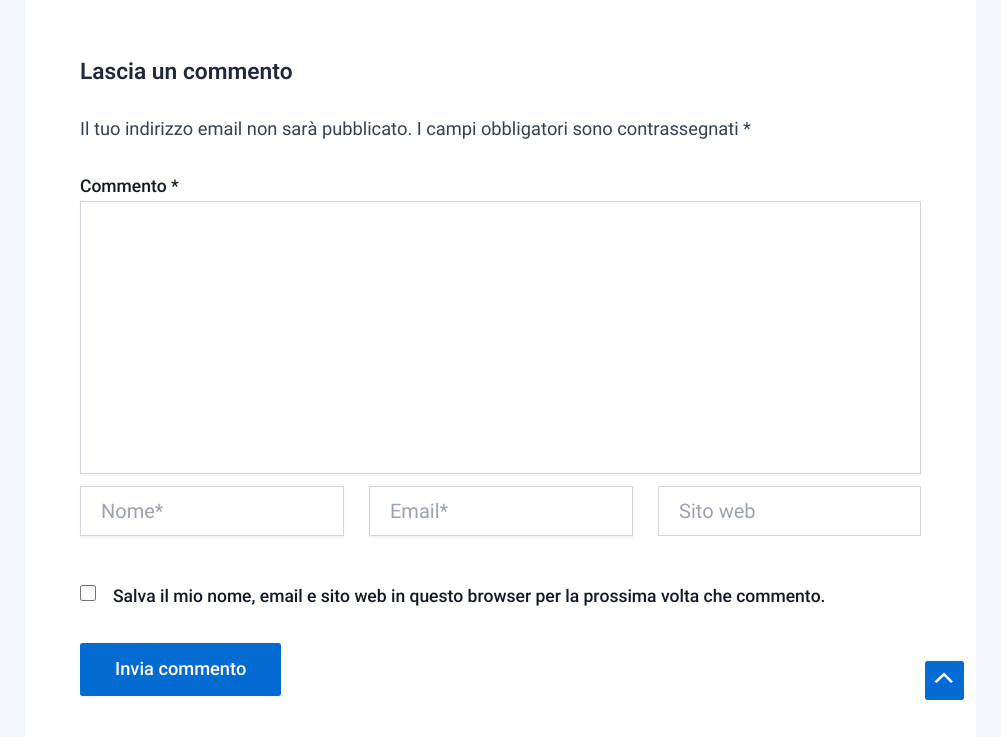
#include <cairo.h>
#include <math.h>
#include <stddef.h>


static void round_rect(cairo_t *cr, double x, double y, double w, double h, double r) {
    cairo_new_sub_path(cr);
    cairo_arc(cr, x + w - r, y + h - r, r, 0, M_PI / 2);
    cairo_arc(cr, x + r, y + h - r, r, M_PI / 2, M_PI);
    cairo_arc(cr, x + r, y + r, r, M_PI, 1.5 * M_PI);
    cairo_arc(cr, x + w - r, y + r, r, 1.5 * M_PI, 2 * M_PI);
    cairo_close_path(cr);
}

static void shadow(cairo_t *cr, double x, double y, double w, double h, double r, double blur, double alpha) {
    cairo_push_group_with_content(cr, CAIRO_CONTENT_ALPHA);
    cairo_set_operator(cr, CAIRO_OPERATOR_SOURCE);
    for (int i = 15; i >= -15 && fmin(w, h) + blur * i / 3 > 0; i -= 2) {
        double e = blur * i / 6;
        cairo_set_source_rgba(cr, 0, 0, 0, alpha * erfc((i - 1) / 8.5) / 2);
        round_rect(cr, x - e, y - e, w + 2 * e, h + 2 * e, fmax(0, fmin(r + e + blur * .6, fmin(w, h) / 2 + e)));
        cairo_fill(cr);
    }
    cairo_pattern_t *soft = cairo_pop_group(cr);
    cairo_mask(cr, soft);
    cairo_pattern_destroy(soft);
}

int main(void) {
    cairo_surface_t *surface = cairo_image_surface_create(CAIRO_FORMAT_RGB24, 1001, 737);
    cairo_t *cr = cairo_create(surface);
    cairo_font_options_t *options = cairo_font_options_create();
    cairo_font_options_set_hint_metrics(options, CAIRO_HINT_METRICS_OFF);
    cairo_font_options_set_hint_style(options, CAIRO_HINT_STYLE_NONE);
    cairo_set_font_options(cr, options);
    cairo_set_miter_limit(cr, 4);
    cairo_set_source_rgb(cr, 0.941, 0.961, 0.98);
    cairo_paint(cr);
    cairo_set_source_rgb(cr, 1, 1, 1);
    cairo_rectangle(cr, 25, 0, 951, 737);
    cairo_fill(cr);
    cairo_select_font_face(cr, "Roboto SemiBold", CAIRO_FONT_SLANT_NORMAL, CAIRO_FONT_WEIGHT_NORMAL);
    cairo_set_font_size(cr, 22.75);
    cairo_set_source_rgb(cr, 0.118, 0.161, 0.231);
    cairo_move_to(cr, 80, 79);
    cairo_show_text(cr, "Lascia un commento");
    cairo_select_font_face(cr, "Roboto", CAIRO_FONT_SLANT_NORMAL, CAIRO_FONT_WEIGHT_NORMAL);
    cairo_set_font_size(cr, 18.25);
    cairo_set_source_rgb(cr, 0.2, 0.255, 0.333);
    cairo_move_to(cr, 80, 135);
    cairo_show_text(cr, "Il tuo indirizzo email non sarà pubblicato. I campi obbligatori sono contrassegnati *");
    cairo_select_font_face(cr, "Roboto Medium", CAIRO_FONT_SLANT_NORMAL, CAIRO_FONT_WEIGHT_NORMAL);
    cairo_set_font_size(cr, 17.5);
    cairo_set_source_rgb(cr, 0.067, 0.094, 0.153);
    cairo_move_to(cr, 80, 192);
    cairo_show_text(cr, "Commento *");
    cairo_set_source_rgb(cr, 0, 0, 0);
    shadow(cr, 80, 203, 841, 272, 0, 1, 0.05);
    cairo_set_source_rgb(cr, 1, 1, 1);
    cairo_rectangle(cr, 80.5, 201.5, 840, 272);
    cairo_fill_preserve(cr);
    cairo_set_source_rgb(cr, 0.82, 0.835, 0.859);
    cairo_set_line_width(cr, 1);
    cairo_stroke(cr);
    cairo_set_source_rgb(cr, 0, 0, 0);
    shadow(cr, 80, 488, 264, 50, 0, 1, 0.05);
    cairo_set_source_rgb(cr, 1, 1, 1);
    cairo_rectangle(cr, 80.5, 486.5, 263, 49);
    cairo_fill_preserve(cr);
    cairo_set_source_rgb(cr, 0.82, 0.835, 0.859);
    cairo_stroke(cr);
    cairo_select_font_face(cr, "Roboto", CAIRO_FONT_SLANT_NORMAL, CAIRO_FONT_WEIGHT_NORMAL);
    cairo_set_font_size(cr, 20);
    cairo_set_source_rgb(cr, 0.612, 0.639, 0.686);
    cairo_move_to(cr, 101, 518);
    cairo_show_text(cr, "Nome*");
    cairo_set_source_rgb(cr, 0, 0, 0);
    shadow(cr, 369, 488, 264, 50, 0, 1, 0.05);
    cairo_set_source_rgb(cr, 1, 1, 1);
    cairo_rectangle(cr, 369.5, 486.5, 263, 49);
    cairo_fill_preserve(cr);
    cairo_set_source_rgb(cr, 0.82, 0.835, 0.859);
    cairo_stroke(cr);
    cairo_set_source_rgb(cr, 0.612, 0.639, 0.686);
    cairo_move_to(cr, 390, 518);
    cairo_show_text(cr, "Email*");
    cairo_rectangle(cr, 658.5, 486.5, 262, 49);
    cairo_set_source_rgb(cr, 0.82, 0.835, 0.859);
    cairo_stroke(cr);
    cairo_set_source_rgb(cr, 0.612, 0.639, 0.686);
    cairo_move_to(cr, 679, 518);
    cairo_show_text(cr, "Sito web");
    round_rect(cr, 80.5, 585.5, 15, 15, 2);
    cairo_set_source_rgb(cr, 0.463, 0.463, 0.463);
    cairo_stroke(cr);
    cairo_select_font_face(cr, "Roboto Medium", CAIRO_FONT_SLANT_NORMAL, CAIRO_FONT_WEIGHT_NORMAL);
    cairo_set_font_size(cr, 17.5);
    cairo_set_source_rgb(cr, 0.067, 0.094, 0.153);
    cairo_move_to(cr, 113, 602);
    cairo_show_text(cr, "Salva il mio nome, email e sito web in questo browser per la prossima volta che commento.");
    cairo_set_source_rgb(cr, 0, 0, 0);
    shadow(cr, 80, 644, 201, 54, 2.5, 1, 0.05);
    cairo_set_source_rgb(cr, 0.016, 0.42, 0.824);
    round_rect(cr, 80, 643, 201, 53, 2.5);
    cairo_fill(cr);
    cairo_set_font_size(cr, 18.25);
    cairo_set_source_rgb(cr, 1, 1, 1);
    cairo_move_to(cr, 115, 675);
    cairo_show_text(cr, "Invia commento");
    cairo_set_source_rgb(cr, 0.016, 0.42, 0.824);
    round_rect(cr, 925, 661, 39, 39, 2.5);
    cairo_fill(cr);
    cairo_set_source_rgb(cr, 1, 1, 1);
    cairo_new_path(cr);
    cairo_move_to(cr, 953, 681.5);
    cairo_line_to(cr, 944, 672.5);
    cairo_line_to(cr, 934.5, 681.5);
    cairo_line_to(cr, 936.5, 683);
    cairo_line_to(cr, 944, 676);
    cairo_line_to(cr, 951, 683);
    cairo_close_path(cr);
    cairo_fill(cr);
    cairo_surface_write_to_png(surface, "page.png");
    cairo_font_options_destroy(options);
    cairo_destroy(cr);
    cairo_surface_destroy(surface);
    return 0;
}
